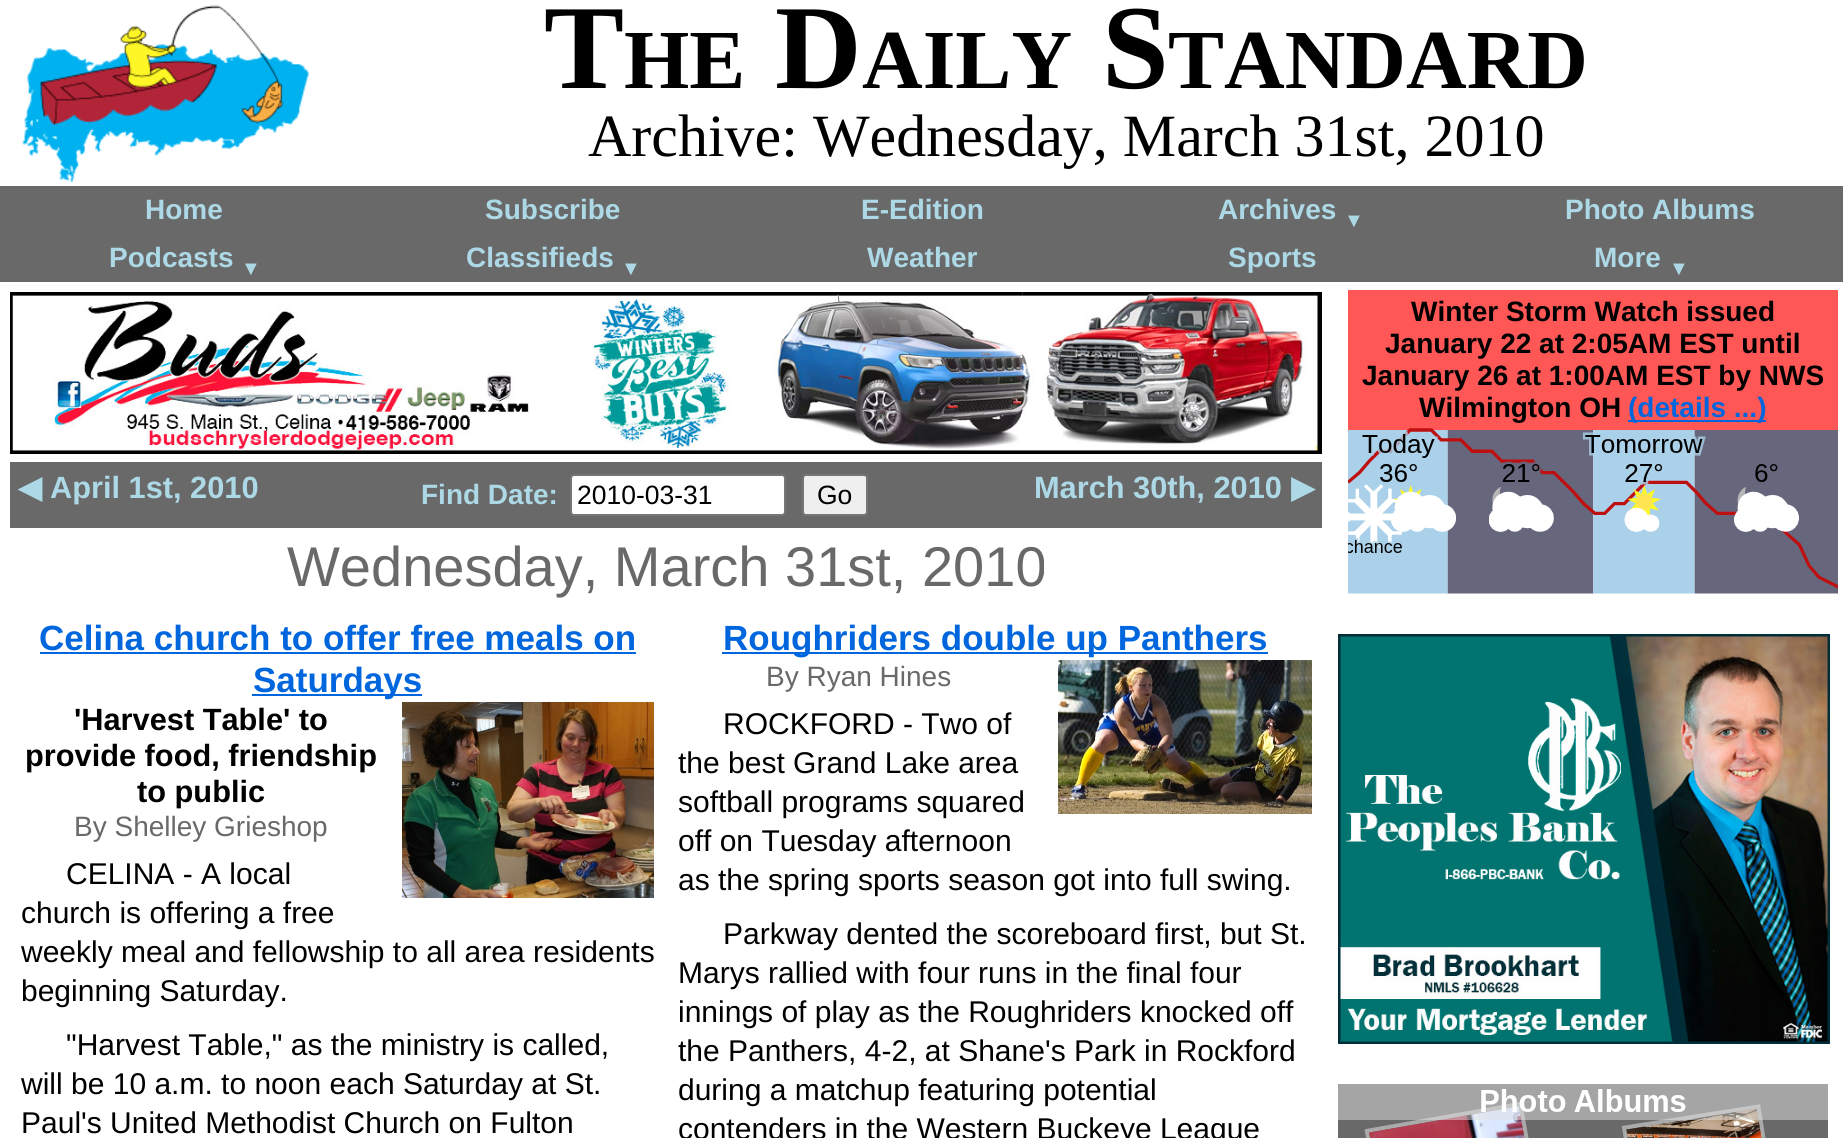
#include <cairo.h>
#include <math.h>
#include <stddef.h>


static void round_rect(cairo_t *cr, double x, double y, double w, double h, double r) {
    cairo_new_sub_path(cr);
    cairo_arc(cr, x + w - r, y + h - r, r, 0, M_PI / 2);
    cairo_arc(cr, x + r, y + h - r, r, M_PI / 2, M_PI);
    cairo_arc(cr, x + r, y + r, r, M_PI, 1.5 * M_PI);
    cairo_arc(cr, x + w - r, y + r, r, 1.5 * M_PI, 2 * M_PI);
    cairo_close_path(cr);
}

static void picture(cairo_t *cr, const char *path, double x, double y, double w, double h) {
    cairo_surface_t *image = cairo_image_surface_create_from_png(path);
    cairo_save(cr);
    cairo_set_source_surface(cr, image, x, y);
    cairo_rectangle(cr, x, y, w, h);
    cairo_fill(cr);
    cairo_restore(cr);
    cairo_surface_destroy(image);
}

int main(void) {
    cairo_surface_t *surface = cairo_image_surface_create(CAIRO_FORMAT_RGB24, 1843, 1138);
    cairo_t *cr = cairo_create(surface);
    cairo_font_options_t *options = cairo_font_options_create();
    cairo_font_options_set_hint_metrics(options, CAIRO_HINT_METRICS_OFF);
    cairo_font_options_set_hint_style(options, CAIRO_HINT_STYLE_NONE);
    cairo_set_font_options(cr, options);
    cairo_set_miter_limit(cr, 4);
    cairo_set_source_rgb(cr, 1, 1, 1);
    cairo_paint(cr);
    picture(cr, "img1.png", 22, 5, 287, 177);
    cairo_select_font_face(cr, "Liberation Serif", CAIRO_FONT_SLANT_NORMAL, CAIRO_FONT_WEIGHT_BOLD);
    cairo_set_font_size(cr, 120);
    cairo_set_source_rgb(cr, 0, 0, 0);
    cairo_move_to(cr, 544, 88);
    cairo_show_text(cr, "T");
    cairo_set_font_size(cr, 84);
    cairo_move_to(cr, 624, 88);
    cairo_show_text(cr, "HE");
    cairo_set_font_size(cr, 120);
    cairo_move_to(cr, 775, 88);
    cairo_show_text(cr, "D");
    cairo_set_font_size(cr, 84);
    cairo_move_to(cr, 862, 88);
    cairo_show_text(cr, "AILY");
    cairo_set_font_size(cr, 120);
    cairo_move_to(cr, 1102, 88);
    cairo_show_text(cr, "S");
    cairo_set_font_size(cr, 84);
    cairo_move_to(cr, 1168, 88);
    cairo_show_text(cr, "TANDARD");
    cairo_select_font_face(cr, "Liberation Serif", CAIRO_FONT_SLANT_NORMAL, CAIRO_FONT_WEIGHT_NORMAL);
    cairo_set_font_size(cr, 60);
    cairo_move_to(cr, 588, 156);
    cairo_show_text(cr, "Archive: Wednesday, March 31st, 2010");
    cairo_set_source_rgb(cr, 0.412, 0.412, 0.412);
    cairo_rectangle(cr, 0, 186, 1843, 96);
    cairo_fill(cr);
    cairo_select_font_face(cr, "Liberation Sans", CAIRO_FONT_SLANT_NORMAL, CAIRO_FONT_WEIGHT_BOLD);
    cairo_set_font_size(cr, 28);
    cairo_set_source_rgb(cr, 0.678, 0.847, 0.902);
    cairo_move_to(cr, 145, 219);
    cairo_show_text(cr, "Home");
    cairo_move_to(cr, 485, 219);
    cairo_show_text(cr, "Subscribe");
    cairo_move_to(cr, 861, 219);
    cairo_show_text(cr, "E-Edition");
    cairo_move_to(cr, 1218, 219);
    cairo_show_text(cr, "Archives");
    cairo_set_font_size(cr, 20);
    cairo_move_to(cr, 1344, 227);
    cairo_show_text(cr, "▼");
    cairo_set_font_size(cr, 28);
    cairo_move_to(cr, 1565, 219);
    cairo_show_text(cr, "Photo Albums");
    cairo_move_to(cr, 109, 267);
    cairo_show_text(cr, "Podcasts");
    cairo_set_font_size(cr, 20);
    cairo_move_to(cr, 241, 275);
    cairo_show_text(cr, "▼");
    cairo_set_font_size(cr, 28);
    cairo_move_to(cr, 466, 267);
    cairo_show_text(cr, "Classifieds");
    cairo_set_font_size(cr, 20);
    cairo_move_to(cr, 621, 275);
    cairo_show_text(cr, "▼");
    cairo_set_font_size(cr, 28);
    cairo_move_to(cr, 867, 267);
    cairo_show_text(cr, "Weather");
    cairo_move_to(cr, 1228, 267);
    cairo_show_text(cr, "Sports");
    cairo_move_to(cr, 1594, 267);
    cairo_show_text(cr, "More");
    cairo_set_font_size(cr, 20);
    cairo_move_to(cr, 1669, 275);
    cairo_show_text(cr, "▼");
    cairo_set_source_rgb(cr, 1, 0.337, 0.337);
    cairo_rectangle(cr, 1348, 290, 490, 140);
    cairo_fill(cr);
    cairo_set_font_size(cr, 28);
    cairo_set_source_rgb(cr, 0, 0, 0);
    cairo_move_to(cr, 1411, 321);
    cairo_show_text(cr, "Winter Storm Watch issued");
    cairo_move_to(cr, 1385, 353);
    cairo_show_text(cr, "January 22 at 2:05AM EST until");
    cairo_move_to(cr, 1362, 385);
    cairo_show_text(cr, "January 26 at 1:00AM EST by NWS");
    cairo_move_to(cr, 1419, 417);
    cairo_show_text(cr, "Wilmington OH");
    cairo_set_source_rgb(cr, 0, 0.4, 0.867);
    cairo_rectangle(cr, 1628, 420, 138, 2);
    cairo_fill(cr);
    cairo_move_to(cr, 1628, 417);
    cairo_show_text(cr, "(details ...)");
    picture(cr, "img2.png", 1348, 428, 490, 166);
    picture(cr, "img3.png", 10, 292, 1312, 162);
    cairo_set_source_rgb(cr, 0.412, 0.412, 0.412);
    cairo_rectangle(cr, 10, 462, 1312, 66);
    cairo_fill(cr);
    cairo_select_font_face(cr, "DejaVu Sans", CAIRO_FONT_SLANT_NORMAL, CAIRO_FONT_WEIGHT_BOLD);
    cairo_set_font_size(cr, 30.75);
    cairo_set_source_rgb(cr, 0.678, 0.847, 0.902);
    cairo_move_to(cr, 18, 498);
    cairo_show_text(cr, "◀");
    cairo_select_font_face(cr, "Liberation Sans", CAIRO_FONT_SLANT_NORMAL, CAIRO_FONT_WEIGHT_BOLD);
    cairo_move_to(cr, 50, 498);
    cairo_show_text(cr, "April 1st, 2010");
    cairo_set_font_size(cr, 28);
    cairo_move_to(cr, 421, 504);
    cairo_show_text(cr, "Find Date:");
    cairo_set_source_rgb(cr, 1, 1, 1);
    round_rect(cr, 571, 475, 214, 40, 3);
    cairo_fill_preserve(cr);
    cairo_set_source_rgb(cr, 0.463, 0.463, 0.463);
    cairo_stroke(cr);
    cairo_select_font_face(cr, "Liberation Sans", CAIRO_FONT_SLANT_NORMAL, CAIRO_FONT_WEIGHT_NORMAL);
    cairo_set_font_size(cr, 26.5);
    cairo_set_source_rgb(cr, 0, 0, 0);
    cairo_move_to(cr, 577, 504);
    cairo_show_text(cr, "2010-03-31");
    cairo_set_source_rgb(cr, 0.937, 0.937, 0.937);
    round_rect(cr, 803, 475, 64, 40, 3);
    cairo_fill_preserve(cr);
    cairo_set_source_rgb(cr, 0.463, 0.463, 0.463);
    cairo_stroke(cr);
    cairo_set_source_rgb(cr, 0, 0, 0);
    cairo_move_to(cr, 817, 504);
    cairo_show_text(cr, "Go");
    cairo_select_font_face(cr, "Liberation Sans", CAIRO_FONT_SLANT_NORMAL, CAIRO_FONT_WEIGHT_BOLD);
    cairo_set_font_size(cr, 30.75);
    cairo_set_source_rgb(cr, 0.678, 0.847, 0.902);
    cairo_move_to(cr, 1034, 498);
    cairo_show_text(cr, "March 30th, 2010");
    cairo_select_font_face(cr, "DejaVu Sans", CAIRO_FONT_SLANT_NORMAL, CAIRO_FONT_WEIGHT_BOLD);
    cairo_move_to(cr, 1291, 498);
    cairo_show_text(cr, "▶");
    cairo_select_font_face(cr, "Liberation Sans", CAIRO_FONT_SLANT_NORMAL, CAIRO_FONT_WEIGHT_NORMAL);
    cairo_set_font_size(cr, 56);
    cairo_set_source_rgb(cr, 0.412, 0.412, 0.412);
    cairo_move_to(cr, 287, 586);
    cairo_show_text(cr, "Wednesday, March 31st, 2010");
    cairo_select_font_face(cr, "Liberation Sans", CAIRO_FONT_SLANT_NORMAL, CAIRO_FONT_WEIGHT_BOLD);
    cairo_set_font_size(cr, 35);
    cairo_set_source_rgb(cr, 0, 0.4, 0.867);
    cairo_move_to(cr, 39, 650);
    cairo_show_text(cr, "Celina church to offer free meals on");
    cairo_rectangle(cr, 40, 652, 596, 2);
    cairo_fill(cr);
    cairo_rectangle(cr, 252, 694, 170, 2);
    cairo_fill(cr);
    cairo_move_to(cr, 253, 692);
    cairo_show_text(cr, "Saturdays");
    cairo_set_font_size(cr, 30.75);
    cairo_set_source_rgb(cr, 0, 0, 0);
    cairo_move_to(cr, 74, 730);
    cairo_show_text(cr, "'Harvest Table' to");
    cairo_move_to(cr, 25, 766);
    cairo_show_text(cr, "provide food, friendship");
    cairo_move_to(cr, 137, 802);
    cairo_show_text(cr, "to public");
    picture(cr, "img4.png", 402, 702, 252, 196);
    cairo_select_font_face(cr, "Liberation Sans", CAIRO_FONT_SLANT_NORMAL, CAIRO_FONT_WEIGHT_NORMAL);
    cairo_set_font_size(cr, 28);
    cairo_set_source_rgb(cr, 0.412, 0.412, 0.412);
    cairo_move_to(cr, 74, 836);
    cairo_show_text(cr, "By Shelley Grieshop");
    cairo_set_font_size(cr, 30);
    cairo_set_source_rgb(cr, 0, 0, 0);
    cairo_move_to(cr, 66, 884);
    cairo_show_text(cr, "CELINA - A local");
    cairo_move_to(cr, 21, 923);
    cairo_show_text(cr, "church is offering a free");
    cairo_move_to(cr, 21, 962);
    cairo_show_text(cr, "weekly meal and fellowship to all area residents");
    cairo_move_to(cr, 21, 1001);
    cairo_show_text(cr, "beginning Saturday.");
    cairo_move_to(cr, 66, 1055);
    cairo_show_text(cr, "\"Harvest Table,\" as the ministry is called,");
    cairo_move_to(cr, 21, 1094);
    cairo_show_text(cr, "will be 10 a.m. to noon each Saturday at St.");
    cairo_move_to(cr, 21, 1133);
    cairo_show_text(cr, "Paul's United Methodist Church on Fulton");
    cairo_set_source_rgb(cr, 0, 0.4, 0.867);
    cairo_rectangle(cr, 722, 652, 546, 2);
    cairo_fill(cr);
    cairo_select_font_face(cr, "Liberation Sans", CAIRO_FONT_SLANT_NORMAL, CAIRO_FONT_WEIGHT_BOLD);
    cairo_set_font_size(cr, 35);
    cairo_move_to(cr, 723, 650);
    cairo_show_text(cr, "Roughriders double up Panthers");
    cairo_select_font_face(cr, "Liberation Sans", CAIRO_FONT_SLANT_NORMAL, CAIRO_FONT_WEIGHT_NORMAL);
    cairo_set_font_size(cr, 28);
    cairo_set_source_rgb(cr, 0.412, 0.412, 0.412);
    cairo_move_to(cr, 766, 686);
    cairo_show_text(cr, "By Ryan Hines");
    picture(cr, "img5.png", 1058, 660, 254, 154);
    cairo_set_font_size(cr, 30);
    cairo_set_source_rgb(cr, 0, 0, 0);
    cairo_move_to(cr, 723, 734);
    cairo_show_text(cr, "ROCKFORD - Two of");
    cairo_move_to(cr, 678, 773);
    cairo_show_text(cr, "the best Grand Lake area");
    cairo_move_to(cr, 678, 812);
    cairo_show_text(cr, "softball programs squared");
    cairo_move_to(cr, 678, 851);
    cairo_show_text(cr, "off on Tuesday afternoon");
    cairo_move_to(cr, 678, 890);
    cairo_show_text(cr, "as the spring sports season got into full swing.");
    cairo_move_to(cr, 723, 944);
    cairo_show_text(cr, "Parkway dented the scoreboard first, but St.");
    cairo_move_to(cr, 678, 983);
    cairo_show_text(cr, "Marys rallied with four runs in the final four");
    cairo_move_to(cr, 678, 1022);
    cairo_show_text(cr, "innings of play as the Roughriders knocked off");
    cairo_move_to(cr, 678, 1061);
    cairo_show_text(cr, "the Panthers, 4-2, at Shane's Park in Rockford");
    cairo_move_to(cr, 678, 1100);
    cairo_show_text(cr, "during a matchup featuring potential");
    cairo_move_to(cr, 678, 1139);
    cairo_show_text(cr, "contenders in the Western Buckeye League");
    picture(cr, "img6.png", 1338, 634, 492, 410);
    picture(cr, "img7.png", 1338, 1084, 490, 54);
    cairo_surface_write_to_png(surface, "page.png");
    cairo_font_options_destroy(options);
    cairo_destroy(cr);
    cairo_surface_destroy(surface);
    return 0;
}
